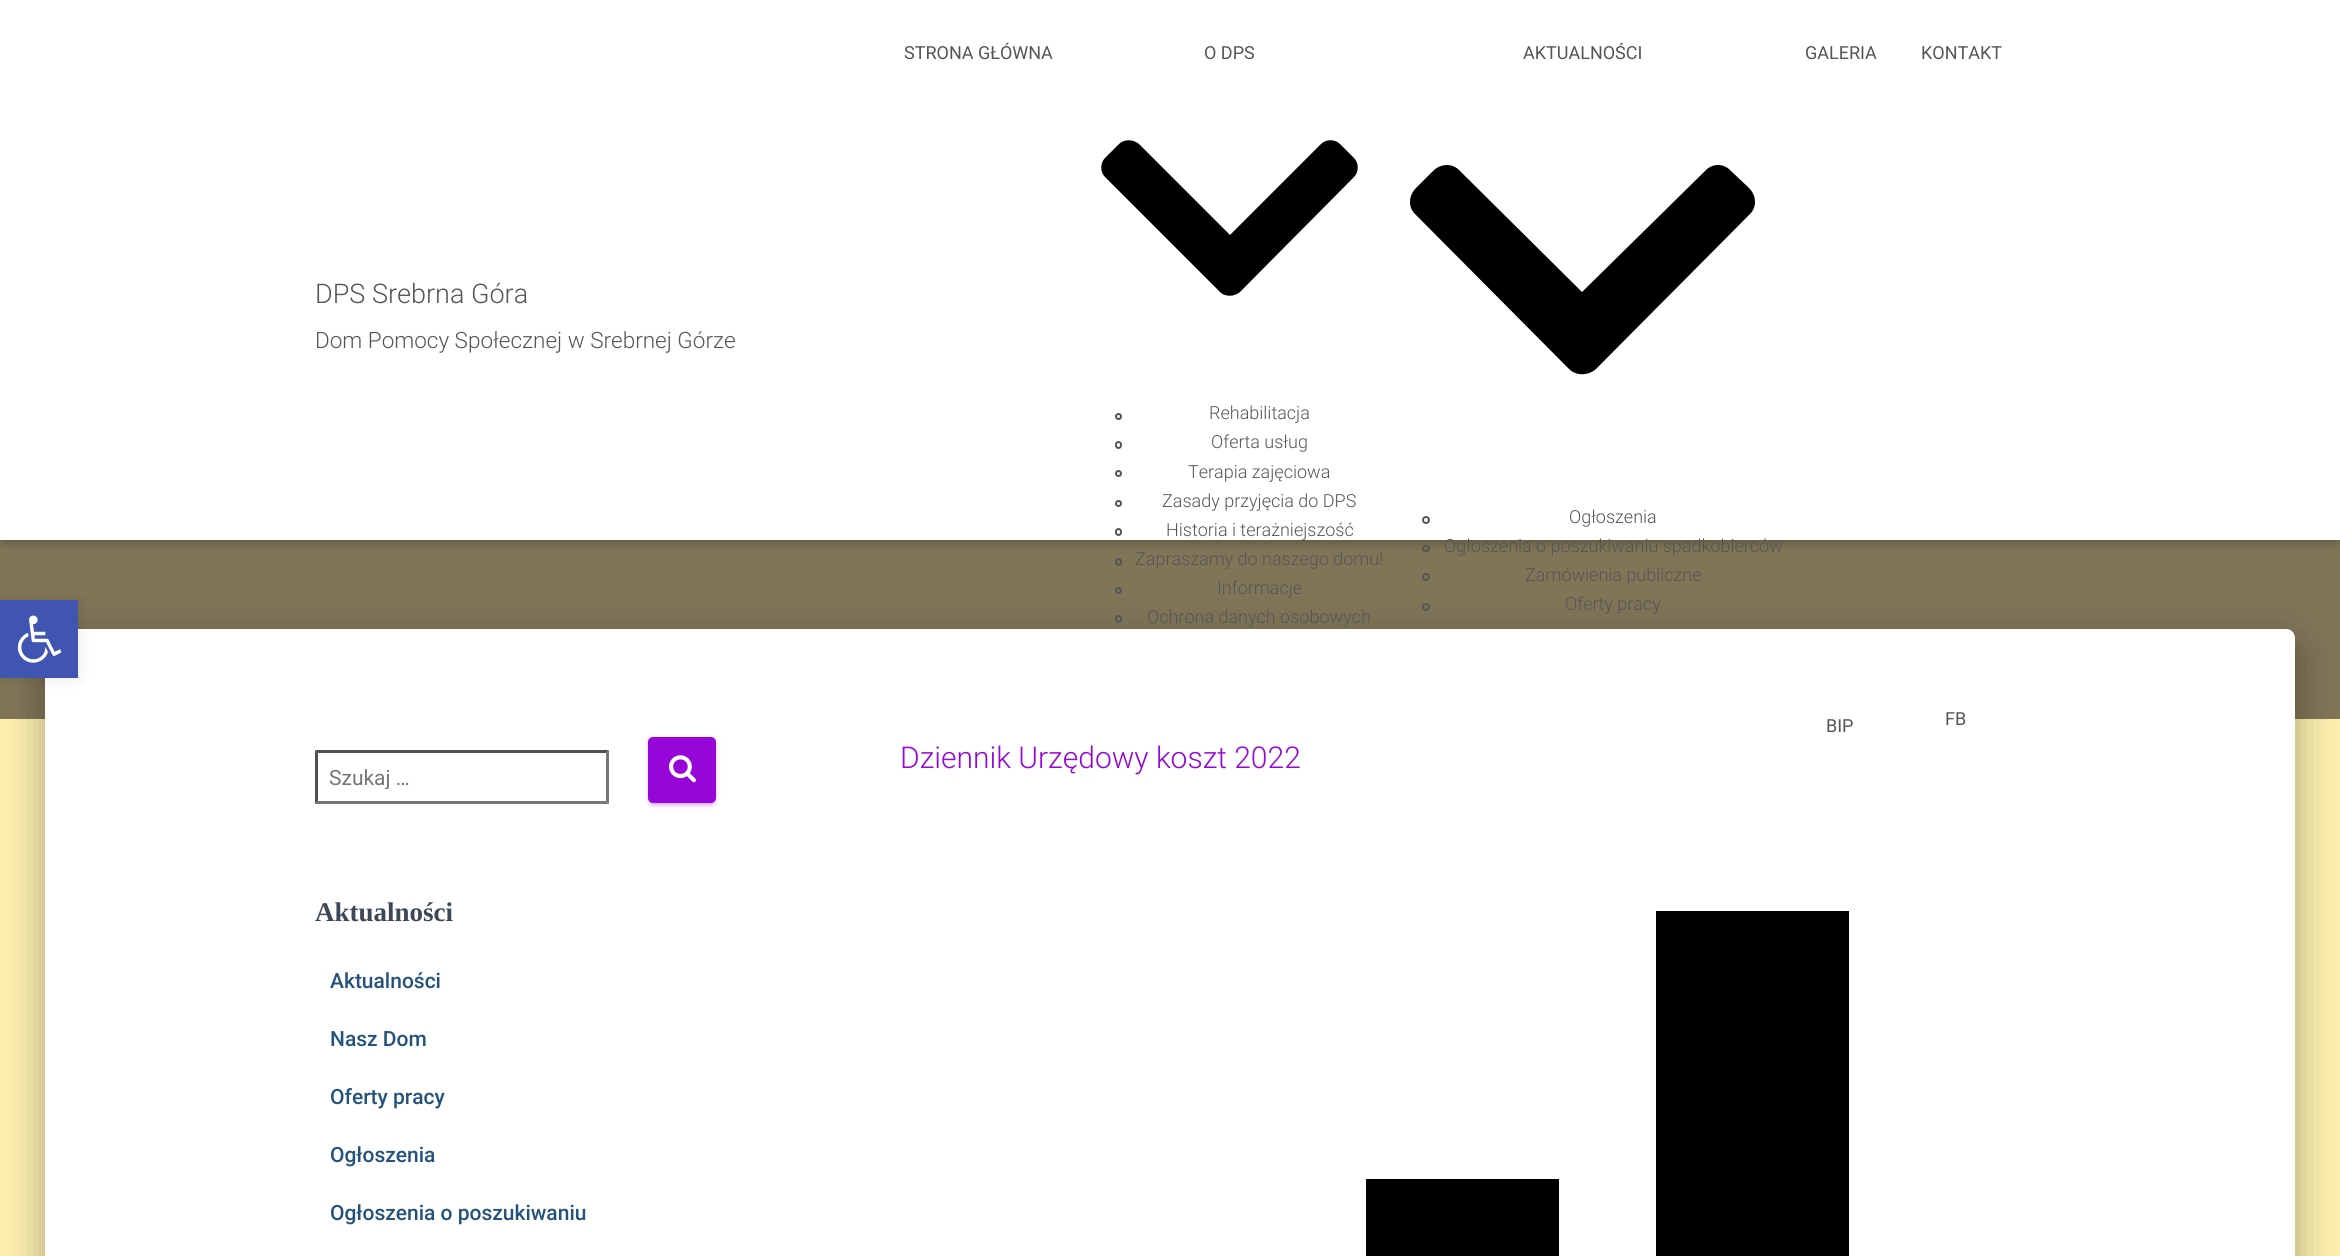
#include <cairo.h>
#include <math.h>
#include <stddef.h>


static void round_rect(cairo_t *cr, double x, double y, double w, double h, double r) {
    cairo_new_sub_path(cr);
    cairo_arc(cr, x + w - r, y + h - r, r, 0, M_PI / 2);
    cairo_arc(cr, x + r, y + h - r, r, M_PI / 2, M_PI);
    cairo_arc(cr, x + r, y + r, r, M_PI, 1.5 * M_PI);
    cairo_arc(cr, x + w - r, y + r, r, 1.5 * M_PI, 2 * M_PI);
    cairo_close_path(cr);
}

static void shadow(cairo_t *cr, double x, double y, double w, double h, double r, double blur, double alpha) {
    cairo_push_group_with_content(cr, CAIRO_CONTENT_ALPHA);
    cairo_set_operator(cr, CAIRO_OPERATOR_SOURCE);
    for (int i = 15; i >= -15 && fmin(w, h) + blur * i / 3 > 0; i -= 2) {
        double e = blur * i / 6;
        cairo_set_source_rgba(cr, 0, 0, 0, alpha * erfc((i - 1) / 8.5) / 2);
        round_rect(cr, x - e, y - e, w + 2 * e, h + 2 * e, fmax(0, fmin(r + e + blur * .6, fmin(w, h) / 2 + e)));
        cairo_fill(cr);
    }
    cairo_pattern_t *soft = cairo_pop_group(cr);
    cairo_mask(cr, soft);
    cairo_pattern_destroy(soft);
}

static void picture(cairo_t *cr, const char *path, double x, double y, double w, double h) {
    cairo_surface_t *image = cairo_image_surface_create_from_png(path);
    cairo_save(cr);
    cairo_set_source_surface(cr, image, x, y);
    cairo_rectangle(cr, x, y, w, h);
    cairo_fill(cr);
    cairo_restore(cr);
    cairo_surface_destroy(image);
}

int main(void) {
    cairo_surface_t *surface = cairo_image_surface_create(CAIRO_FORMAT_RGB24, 2340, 1256);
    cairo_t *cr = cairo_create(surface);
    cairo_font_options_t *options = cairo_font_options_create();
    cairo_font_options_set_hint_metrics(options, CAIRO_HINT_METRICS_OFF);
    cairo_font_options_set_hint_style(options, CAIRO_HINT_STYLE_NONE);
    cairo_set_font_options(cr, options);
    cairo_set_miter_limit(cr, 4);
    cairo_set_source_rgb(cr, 0.988, 0.937, 0.682);
    cairo_paint(cr);
    cairo_set_source_rgb(cr, 0.502, 0.459, 0.341);
    cairo_rectangle(cr, 0, 540, 2340, 179);
    cairo_fill(cr);
    cairo_set_source_rgb(cr, 0, 0, 0);
    shadow(cr, 53, 648, 2235, 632, 1.5, 7.5, 0.2);
    shadow(cr, 38, 630, 2265, 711, 17, 22.5, 0.12);
    shadow(cr, 42, 650, 2256, 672, 12, 18, 0.14);
    cairo_set_source_rgb(cr, 1, 1, 1);
    cairo_new_path(cr);
    cairo_move_to(cr, 54, 629);
    cairo_line_to(cr, 2286, 629);
    cairo_curve_to(cr, 2291, 629, 2295, 633, 2295, 638);
    cairo_line_to(cr, 2295, 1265);
    cairo_line_to(cr, 45, 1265);
    cairo_line_to(cr, 45, 638);
    cairo_curve_to(cr, 45, 633, 49, 629, 54, 629);
    cairo_close_path(cr);
    cairo_fill(cr);
    cairo_set_source_rgb(cr, 0, 0, 0);
    shadow(cr, 0, 600, 78, 78, 0, 7.5, 0.1);
    cairo_set_source_rgb(cr, 0.251, 0.329, 0.698);
    cairo_rectangle(cr, 0, 600, 78, 78);
    cairo_fill(cr);
    picture(cr, "img1.png", 17, 615, 45, 48);
    cairo_set_source_rgb(cr, 0, 0, 0);
    shadow(cr, 3, 9, 2334, 534, 0, 4, 0.1);
    shadow(cr, 0, 2, 2340, 540, 0, 7.5, 0.12);
    shadow(cr, 9, 11, 2322, 522, 0, 7.5, 0.42);
    cairo_set_source_rgb(cr, 1, 1, 1);
    cairo_rectangle(cr, 0, 0, 2340, 540);
    cairo_fill(cr);
    cairo_select_font_face(cr, "Roboto Light", CAIRO_FONT_SLANT_NORMAL, CAIRO_FONT_WEIGHT_NORMAL);
    cairo_set_font_size(cr, 27);
    cairo_set_source_rgb(cr, 0.333, 0.333, 0.333);
    cairo_move_to(cr, 315, 303);
    cairo_show_text(cr, "DPS Srebrna Góra");
    cairo_set_font_size(cr, 22.5);
    cairo_move_to(cr, 315, 348);
    cairo_show_text(cr, "Dom Pomocy Społecznej w Srebrnej Górze");
    cairo_select_font_face(cr, "Roboto", CAIRO_FONT_SLANT_NORMAL, CAIRO_FONT_WEIGHT_NORMAL);
    cairo_set_font_size(cr, 18);
    cairo_move_to(cr, 904, 59);
    cairo_show_text(cr, "STRONA GŁÓWNA");
    cairo_move_to(cr, 1204, 59);
    cairo_show_text(cr, "O DPS");
    cairo_set_source_rgb(cr, 0, 0, 0);
    cairo_new_path(cr);
    cairo_move_to(cr, 1220, 292);
    cairo_line_to(cr, 1105, 177);
    cairo_curve_to(cr, 1100, 172, 1100, 163, 1105, 158);
    cairo_line_to(cr, 1119, 144);
    cairo_curve_to(cr, 1124, 139, 1133, 139, 1139, 144);
    cairo_line_to(cr, 1230, 235);
    cairo_line_to(cr, 1321, 144);
    cairo_curve_to(cr, 1326, 139, 1335, 139, 1340, 144);
    cairo_line_to(cr, 1354, 158);
    cairo_curve_to(cr, 1359, 163, 1359, 172, 1354, 177);
    cairo_line_to(cr, 1240, 292);
    cairo_curve_to(cr, 1234, 297, 1225, 297, 1220, 292);
    cairo_close_path(cr);
    cairo_fill(cr);
    cairo_arc(cr, 1118.5, 416.5, 2.5, 0, 2 * M_PI);
    cairo_set_source_rgb(cr, 0.333, 0.333, 0.333);
    cairo_stroke(cr);
    cairo_select_font_face(cr, "Roboto Light", CAIRO_FONT_SLANT_NORMAL, CAIRO_FONT_WEIGHT_NORMAL);
    cairo_move_to(cr, 1209, 419);
    cairo_show_text(cr, "Rehabilitacja");
    round_rect(cr, 1116, 442, 5, 6, 2.5);
    cairo_stroke(cr);
    cairo_move_to(cr, 1211, 448);
    cairo_show_text(cr, "Oferta usług");
    cairo_new_path(cr);
    cairo_arc(cr, 1118.5, 473.5, 2.5, 0, 2 * M_PI);
    cairo_stroke(cr);
    cairo_move_to(cr, 1188, 478);
    cairo_show_text(cr, "Terapia zajęciowa");
    cairo_new_path(cr);
    cairo_arc(cr, 1118.5, 503.5, 2.5, 0, 2 * M_PI);
    cairo_stroke(cr);
    cairo_move_to(cr, 1162, 507);
    cairo_show_text(cr, "Zasady przyjęcia do DPS");
    round_rect(cr, 1116, 529, 5, 6, 2.5);
    cairo_stroke(cr);
    cairo_move_to(cr, 1166, 536);
    cairo_show_text(cr, "Historia i terażniejszość");
    round_rect(cr, 1116, 559, 5, 6, 2.5);
    cairo_stroke(cr);
    cairo_move_to(cr, 1135, 565);
    cairo_show_text(cr, "Zapraszamy do naszego domu!");
    cairo_new_path(cr);
    cairo_arc(cr, 1118.5, 590.5, 2.5, 0, 2 * M_PI);
    cairo_stroke(cr);
    cairo_move_to(cr, 1217, 594);
    cairo_show_text(cr, "Informacje");
    round_rect(cr, 1116, 616, 5, 6, 2.5);
    cairo_stroke(cr);
    cairo_move_to(cr, 1147, 623);
    cairo_show_text(cr, "Ochrona danych osobowych");
    cairo_select_font_face(cr, "Roboto", CAIRO_FONT_SLANT_NORMAL, CAIRO_FONT_WEIGHT_NORMAL);
    cairo_move_to(cr, 1523, 59);
    cairo_show_text(cr, "AKTUALNOŚCI");
    cairo_set_source_rgb(cr, 0, 0, 0);
    cairo_new_path(cr);
    cairo_move_to(cr, 1569, 369);
    cairo_line_to(cr, 1416, 215);
    cairo_curve_to(cr, 1408, 208, 1408, 196, 1416, 188);
    cairo_line_to(cr, 1433, 171);
    cairo_curve_to(cr, 1441, 163, 1453, 163, 1460, 171);
    cairo_line_to(cr, 1582, 292);
    cairo_line_to(cr, 1705, 171);
    cairo_curve_to(cr, 1712, 163, 1724, 163, 1731, 171);
    cairo_line_to(cr, 1749, 188);
    cairo_curve_to(cr, 1757, 196, 1757, 208, 1749, 215);
    cairo_line_to(cr, 1596, 369);
    cairo_curve_to(cr, 1588, 376, 1576, 376, 1569, 369);
    cairo_close_path(cr);
    cairo_fill(cr);
    cairo_arc(cr, 1426, 520, 3, 0, 2 * M_PI);
    cairo_set_source_rgb(cr, 0.333, 0.333, 0.333);
    cairo_stroke(cr);
    cairo_select_font_face(cr, "Roboto Light", CAIRO_FONT_SLANT_NORMAL, CAIRO_FONT_WEIGHT_NORMAL);
    cairo_move_to(cr, 1569, 523);
    cairo_show_text(cr, "Ogłoszenia");
    round_rect(cr, 1423, 546, 6, 5, 2.5);
    cairo_stroke(cr);
    cairo_move_to(cr, 1444, 552);
    cairo_show_text(cr, "Ogłoszenia o poszukiwaniu spadkobierców");
    cairo_new_path(cr);
    cairo_arc(cr, 1426, 577, 3, 0, 2 * M_PI);
    cairo_stroke(cr);
    cairo_move_to(cr, 1525, 581);
    cairo_show_text(cr, "Zamówienia publiczne");
    cairo_new_path(cr);
    cairo_arc(cr, 1426, 607, 3, 0, 2 * M_PI);
    cairo_stroke(cr);
    cairo_move_to(cr, 1565, 610);
    cairo_show_text(cr, "Oferty pracy");
    cairo_select_font_face(cr, "Roboto", CAIRO_FONT_SLANT_NORMAL, CAIRO_FONT_WEIGHT_NORMAL);
    cairo_move_to(cr, 1805, 59);
    cairo_show_text(cr, "GALERIA");
    cairo_move_to(cr, 1921, 59);
    cairo_show_text(cr, "KONTAKT");
    cairo_move_to(cr, 1826, 732);
    cairo_show_text(cr, "BIP");
    cairo_move_to(cr, 1945, 725);
    cairo_show_text(cr, "FB");
    cairo_select_font_face(cr, "Roboto Light", CAIRO_FONT_SLANT_NORMAL, CAIRO_FONT_WEIGHT_NORMAL);
    cairo_set_font_size(cr, 30);
    cairo_set_source_rgb(cr, 0.588, 0.024, 0.847);
    cairo_move_to(cr, 900, 768);
    cairo_show_text(cr, "Dziennik Urzędowy koszt 2022");
    cairo_set_source_rgb(cr, 0, 0, 0);
    cairo_new_path(cr);
    cairo_move_to(cr, 1269, 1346);
    cairo_line_to(cr, 1269, 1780);
    cairo_line_to(cr, 1076, 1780);
    cairo_line_to(cr, 1076, 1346);
    cairo_close_path(cr);
    cairo_move_to(cr, 1559, 1179);
    cairo_line_to(cr, 1559, 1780);
    cairo_line_to(cr, 1366, 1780);
    cairo_line_to(cr, 1366, 1179);
    cairo_close_path(cr);
    cairo_move_to(cr, 1849, 911);
    cairo_line_to(cr, 1849, 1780);
    cairo_line_to(cr, 1656, 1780);
    cairo_line_to(cr, 1656, 911);
    cairo_close_path(cr);
    cairo_fill(cr);
    cairo_set_source_rgb(cr, 0.31, 0.31, 0.31);
    cairo_new_path(cr);
    cairo_move_to(cr, 315, 750);
    cairo_line_to(cr, 609, 750);
    cairo_line_to(cr, 606, 753);
    cairo_line_to(cr, 318, 753);
    cairo_close_path(cr);
    cairo_fill(cr);
    cairo_set_source_rgb(cr, 0.463, 0.463, 0.463);
    cairo_new_path(cr);
    cairo_move_to(cr, 609, 750);
    cairo_line_to(cr, 609, 804);
    cairo_line_to(cr, 606, 801);
    cairo_line_to(cr, 606, 753);
    cairo_close_path(cr);
    cairo_fill(cr);
    cairo_new_path(cr);
    cairo_move_to(cr, 609, 804);
    cairo_line_to(cr, 315, 804);
    cairo_line_to(cr, 318, 801);
    cairo_line_to(cr, 606, 801);
    cairo_close_path(cr);
    cairo_fill(cr);
    cairo_set_source_rgb(cr, 0.31, 0.31, 0.31);
    cairo_new_path(cr);
    cairo_move_to(cr, 315, 804);
    cairo_line_to(cr, 315, 750);
    cairo_line_to(cr, 318, 753);
    cairo_line_to(cr, 318, 801);
    cairo_close_path(cr);
    cairo_fill(cr);
    cairo_save(cr);
    cairo_rectangle(cr, 329, 765, 261, 24);
    cairo_clip(cr);
    cairo_select_font_face(cr, "Roboto", CAIRO_FONT_SLANT_NORMAL, CAIRO_FONT_WEIGHT_NORMAL);
    cairo_set_font_size(cr, 21);
    cairo_set_source_rgb(cr, 0.459, 0.459, 0.459);
    cairo_move_to(cr, 329, 785);
    cairo_show_text(cr, "Szukaj …");
    cairo_restore(cr);
    cairo_set_source_rgb(cr, 0.588, 0.024, 0.847);
    shadow(cr, 648, 738, 68, 66, 5, 4, 0.12);
    shadow(cr, 651, 744, 62, 60, 1.5, 1, 0.2);
    shadow(cr, 648, 740, 68, 66, 5, 1.5, 0.14);
    cairo_set_source_rgb(cr, 0.588, 0.024, 0.847);
    round_rect(cr, 648, 737, 68, 66, 5);
    cairo_fill(cr);
    picture(cr, "img2.png", 669, 755, 27, 28);
    cairo_select_font_face(cr, "Liberation Serif", CAIRO_FONT_SLANT_NORMAL, CAIRO_FONT_WEIGHT_BOLD);
    cairo_set_font_size(cr, 27);
    cairo_set_source_rgb(cr, 0.235, 0.282, 0.345);
    cairo_move_to(cr, 315, 921);
    cairo_show_text(cr, "Aktualności");
    cairo_select_font_face(cr, "Roboto Medium", CAIRO_FONT_SLANT_NORMAL, CAIRO_FONT_WEIGHT_NORMAL);
    cairo_set_font_size(cr, 21);
    cairo_set_source_rgb(cr, 0.137, 0.322, 0.486);
    cairo_move_to(cr, 330, 988);
    cairo_show_text(cr, "Aktualności");
    cairo_move_to(cr, 330, 1046);
    cairo_show_text(cr, "Nasz Dom");
    cairo_move_to(cr, 330, 1104);
    cairo_show_text(cr, "Oferty pracy");
    cairo_move_to(cr, 330, 1162);
    cairo_show_text(cr, "Ogłoszenia");
    cairo_move_to(cr, 330, 1220);
    cairo_show_text(cr, "Ogłoszenia o poszukiwaniu");
    cairo_surface_write_to_png(surface, "page.png");
    cairo_font_options_destroy(options);
    cairo_destroy(cr);
    cairo_surface_destroy(surface);
    return 0;
}
